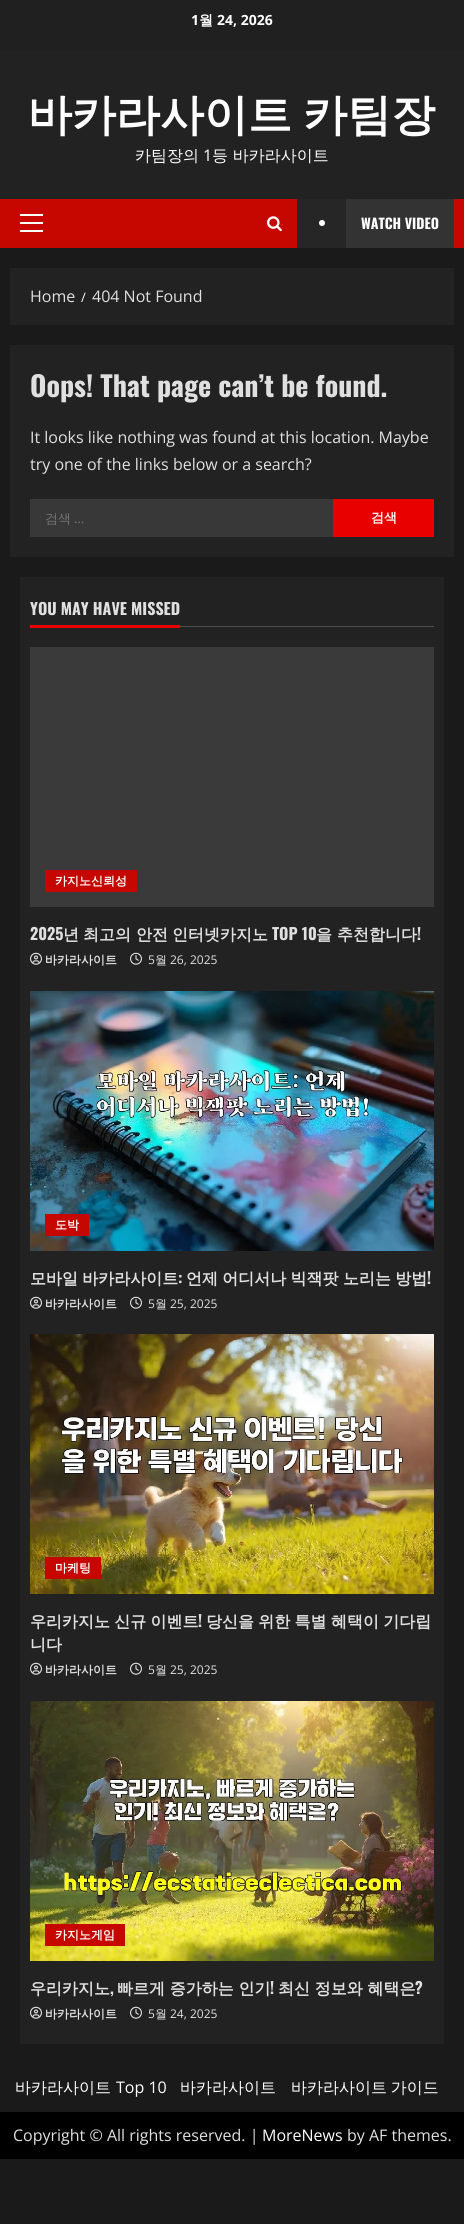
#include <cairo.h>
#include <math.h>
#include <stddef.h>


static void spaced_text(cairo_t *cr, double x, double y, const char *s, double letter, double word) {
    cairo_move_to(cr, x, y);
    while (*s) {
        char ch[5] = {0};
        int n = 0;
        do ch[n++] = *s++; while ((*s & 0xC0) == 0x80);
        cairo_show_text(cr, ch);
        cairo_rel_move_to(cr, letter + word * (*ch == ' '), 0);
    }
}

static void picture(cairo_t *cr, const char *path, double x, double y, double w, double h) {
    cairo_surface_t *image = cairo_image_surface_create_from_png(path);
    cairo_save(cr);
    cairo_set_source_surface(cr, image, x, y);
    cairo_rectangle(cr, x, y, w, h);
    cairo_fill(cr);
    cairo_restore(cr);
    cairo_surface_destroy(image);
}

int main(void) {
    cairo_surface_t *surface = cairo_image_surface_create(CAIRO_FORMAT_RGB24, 464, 2224);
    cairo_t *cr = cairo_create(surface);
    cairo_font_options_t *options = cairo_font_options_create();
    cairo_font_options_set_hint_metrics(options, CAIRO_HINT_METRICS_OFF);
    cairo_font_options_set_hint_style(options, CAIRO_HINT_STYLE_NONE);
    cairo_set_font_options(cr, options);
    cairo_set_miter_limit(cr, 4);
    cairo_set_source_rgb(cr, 0.102, 0.102, 0.102);
    cairo_paint(cr);
    cairo_set_source_rgb(cr, 0.125, 0.125, 0.125);
    cairo_rectangle(cr, 0, 0, 464, 50);
    cairo_fill(cr);
    cairo_select_font_face(cr, "Open Sans", CAIRO_FONT_SLANT_NORMAL, CAIRO_FONT_WEIGHT_BOLD);
    cairo_set_font_size(cr, 14);
    cairo_set_source_rgb(cr, 1, 1, 1);
    cairo_move_to(cr, 191, 25);
    cairo_show_text(cr, "1");
    cairo_select_font_face(cr, "WenQuanYi Zen Hei", CAIRO_FONT_SLANT_NORMAL, CAIRO_FONT_WEIGHT_BOLD);
    cairo_move_to(cr, 199, 25);
    cairo_show_text(cr, "월");
    cairo_select_font_face(cr, "Open Sans", CAIRO_FONT_SLANT_NORMAL, CAIRO_FONT_WEIGHT_BOLD);
    cairo_move_to(cr, 217, 25);
    cairo_show_text(cr, "24, 2026");
    cairo_set_source_rgb(cr, 0.133, 0.133, 0.133);
    cairo_rectangle(cr, 0, 50, 464, 149);
    cairo_fill(cr);
    cairo_select_font_face(cr, "WenQuanYi Zen Hei", CAIRO_FONT_SLANT_NORMAL, CAIRO_FONT_WEIGHT_BOLD);
    cairo_set_font_size(cr, 44);
    cairo_set_source_rgb(cr, 1, 1, 1);
    spaced_text(cr, 28, 130, "바카라사이트 카팀장", 0, -2);
    cairo_select_font_face(cr, "WenQuanYi Zen Hei Medium", CAIRO_FONT_SLANT_NORMAL, CAIRO_FONT_WEIGHT_NORMAL);
    cairo_set_font_size(cr, 16);
    cairo_move_to(cr, 135, 161);
    cairo_show_text(cr, "카팀장의");
    cairo_select_font_face(cr, "Open Sans", CAIRO_FONT_SLANT_NORMAL, CAIRO_FONT_WEIGHT_NORMAL);
    cairo_move_to(cr, 203, 161);
    cairo_show_text(cr, "1");
    cairo_select_font_face(cr, "WenQuanYi Zen Hei Medium", CAIRO_FONT_SLANT_NORMAL, CAIRO_FONT_WEIGHT_NORMAL);
    cairo_move_to(cr, 212, 161);
    cairo_show_text(cr, "등 바카라사이트");
    cairo_set_source_rgb(cr, 0.776, 0.031, 0);
    cairo_rectangle(cr, 0, 199, 464, 49);
    cairo_fill(cr);
    cairo_set_source_rgb(cr, 1, 1, 1);
    cairo_rectangle(cr, 20, 222, 23, 2);
    cairo_fill(cr);
    cairo_rectangle(cr, 20, 214, 23, 2);
    cairo_fill(cr);
    cairo_rectangle(cr, 20, 230, 23, 2);
    cairo_fill(cr);
    picture(cr, "img1.png", 267, 216, 15, 16);
    cairo_set_source_rgb(cr, 0.2, 0.2, 0.2);
    cairo_rectangle(cr, 346, 199, 108, 49);
    cairo_fill(cr);
    cairo_set_source_rgb(cr, 0.149, 0.149, 0.149);
    cairo_rectangle(cr, 297, 199, 49, 49);
    cairo_fill(cr);
    cairo_set_source_rgb(cr, 1, 1, 1);
    cairo_arc(cr, 322, 223, 3, 0, 2 * M_PI);
    cairo_fill(cr);
    cairo_select_font_face(cr, "Oswald", CAIRO_FONT_SLANT_NORMAL, CAIRO_FONT_WEIGHT_BOLD);
    cairo_set_font_size(cr, 14);
    cairo_move_to(cr, 361, 229);
    cairo_show_text(cr, "WATCH VIDEO");
    cairo_set_source_rgb(cr, 0.133, 0.133, 0.133);
    cairo_rectangle(cr, 10, 268, 444, 57);
    cairo_fill(cr);
    cairo_select_font_face(cr, "Open Sans", CAIRO_FONT_SLANT_NORMAL, CAIRO_FONT_WEIGHT_NORMAL);
    cairo_set_font_size(cr, 16);
    cairo_set_source_rgb(cr, 0.878, 0.878, 0.878);
    cairo_move_to(cr, 30, 302);
    cairo_show_text(cr, "Home");
    cairo_set_font_size(cr, 13);
    cairo_set_source_rgb(cr, 1, 1, 1);
    cairo_move_to(cr, 81, 302);
    cairo_show_text(cr, "/");
    cairo_set_font_size(cr, 16);
    cairo_set_source_rgb(cr, 0.878, 0.878, 0.878);
    cairo_move_to(cr, 92, 302);
    cairo_show_text(cr, "404 Not Found");
    cairo_set_source_rgb(cr, 0.133, 0.133, 0.133);
    cairo_rectangle(cr, 10, 345, 444, 212);
    cairo_fill(cr);
    cairo_select_font_face(cr, "Oswald", CAIRO_FONT_SLANT_NORMAL, CAIRO_FONT_WEIGHT_BOLD);
    cairo_set_font_size(cr, 28);
    cairo_set_source_rgb(cr, 0.878, 0.878, 0.878);
    cairo_move_to(cr, 30, 397);
    cairo_show_text(cr, "Oops! That page can’t be found.");
    cairo_select_font_face(cr, "Open Sans", CAIRO_FONT_SLANT_NORMAL, CAIRO_FONT_WEIGHT_NORMAL);
    cairo_set_font_size(cr, 16);
    cairo_move_to(cr, 30, 443);
    cairo_show_text(cr, "It looks like nothing was found at this location. Maybe");
    cairo_move_to(cr, 30, 470);
    cairo_show_text(cr, "try one of the links below or a search?");
    cairo_set_source_rgb(cr, 0.22, 0.22, 0.22);
    cairo_rectangle(cr, 30, 499, 303, 38);
    cairo_fill(cr);
    cairo_select_font_face(cr, "WenQuanYi Zen Hei Medium", CAIRO_FONT_SLANT_NORMAL, CAIRO_FONT_WEIGHT_NORMAL);
    cairo_set_font_size(cr, 13);
    cairo_set_source_rgb(cr, 0.459, 0.459, 0.459);
    cairo_move_to(cr, 45, 523);
    cairo_show_text(cr, "검색");
    cairo_select_font_face(cr, "Open Sans", CAIRO_FONT_SLANT_NORMAL, CAIRO_FONT_WEIGHT_NORMAL);
    cairo_move_to(cr, 74, 523);
    cairo_show_text(cr, "…");
    cairo_set_source_rgb(cr, 0.91, 0, 0);
    cairo_rectangle(cr, 333, 499, 101, 38);
    cairo_fill(cr);
    cairo_select_font_face(cr, "WenQuanYi Zen Hei", CAIRO_FONT_SLANT_NORMAL, CAIRO_FONT_WEIGHT_BOLD);
    cairo_set_source_rgb(cr, 1, 1, 1);
    cairo_move_to(cr, 371, 522);
    cairo_show_text(cr, "검색");
    cairo_set_source_rgb(cr, 0.133, 0.133, 0.133);
    cairo_rectangle(cr, 20, 577, 424, 1467);
    cairo_fill(cr);
    cairo_set_source_rgb(cr, 0.306, 0.306, 0.306);
    cairo_rectangle(cr, 180, 626, 254, 1);
    cairo_fill(cr);
    cairo_select_font_face(cr, "Oswald", CAIRO_FONT_SLANT_NORMAL, CAIRO_FONT_WEIGHT_BOLD);
    cairo_set_font_size(cr, 16);
    cairo_set_source_rgb(cr, 0.878, 0.878, 0.878);
    cairo_move_to(cr, 30, 615);
    cairo_show_text(cr, "YOU MAY HAVE MISSED");
    cairo_set_source_rgb(cr, 0.91, 0, 0);
    cairo_rectangle(cr, 30, 625, 150, 3);
    cairo_fill(cr);
    cairo_set_source_rgb(cr, 0.227, 0.227, 0.227);
    cairo_rectangle(cr, 30, 647, 404, 260);
    cairo_fill(cr);
    cairo_set_source_rgb(cr, 0.776, 0.031, 0);
    cairo_rectangle(cr, 45, 870, 92, 22);
    cairo_fill(cr);
    cairo_select_font_face(cr, "WenQuanYi Zen Hei", CAIRO_FONT_SLANT_NORMAL, CAIRO_FONT_WEIGHT_BOLD);
    cairo_set_font_size(cr, 12);
    cairo_set_source_rgb(cr, 1, 1, 1);
    cairo_move_to(cr, 55, 885);
    cairo_show_text(cr, "카지노신뢰성");
    cairo_select_font_face(cr, "Oswald", CAIRO_FONT_SLANT_NORMAL, CAIRO_FONT_WEIGHT_BOLD);
    cairo_set_font_size(cr, 16);
    cairo_set_source_rgb(cr, 0.878, 0.878, 0.878);
    cairo_move_to(cr, 30, 940);
    cairo_show_text(cr, "2025");
    cairo_select_font_face(cr, "WenQuanYi Zen Hei", CAIRO_FONT_SLANT_NORMAL, CAIRO_FONT_WEIGHT_BOLD);
    cairo_move_to(cr, 63, 940);
    cairo_show_text(cr, "년");
    cairo_move_to(cr, 83, 940);
    cairo_show_text(cr, "최고의");
    cairo_move_to(cr, 136, 940);
    cairo_show_text(cr, "안전");
    cairo_move_to(cr, 172, 940);
    cairo_show_text(cr, "인터넷카지노");
    cairo_select_font_face(cr, "Oswald", CAIRO_FONT_SLANT_NORMAL, CAIRO_FONT_WEIGHT_BOLD);
    cairo_move_to(cr, 272, 940);
    cairo_show_text(cr, "TOP 10");
    cairo_select_font_face(cr, "WenQuanYi Zen Hei", CAIRO_FONT_SLANT_NORMAL, CAIRO_FONT_WEIGHT_BOLD);
    cairo_move_to(cr, 316, 940);
    cairo_show_text(cr, "을");
    cairo_move_to(cr, 337, 940);
    cairo_show_text(cr, "추천합니다");
    cairo_select_font_face(cr, "Oswald", CAIRO_FONT_SLANT_NORMAL, CAIRO_FONT_WEIGHT_BOLD);
    cairo_move_to(cr, 417, 940);
    cairo_show_text(cr, "!");
    picture(cr, "img2.png", 30, 952, 12, 13);
    cairo_select_font_face(cr, "WenQuanYi Zen Hei", CAIRO_FONT_SLANT_NORMAL, CAIRO_FONT_WEIGHT_BOLD);
    cairo_set_font_size(cr, 12);
    cairo_move_to(cr, 45, 964);
    cairo_show_text(cr, "바카라사이트");
    picture(cr, "img3.png", 130, 952, 12, 13);
    cairo_select_font_face(cr, "Open Sans", CAIRO_FONT_SLANT_NORMAL, CAIRO_FONT_WEIGHT_NORMAL);
    cairo_move_to(cr, 148, 964);
    cairo_show_text(cr, "5");
    cairo_select_font_face(cr, "WenQuanYi Zen Hei Medium", CAIRO_FONT_SLANT_NORMAL, CAIRO_FONT_WEIGHT_NORMAL);
    cairo_move_to(cr, 155, 964);
    cairo_show_text(cr, "월");
    cairo_select_font_face(cr, "Open Sans", CAIRO_FONT_SLANT_NORMAL, CAIRO_FONT_WEIGHT_NORMAL);
    cairo_move_to(cr, 170, 964);
    cairo_show_text(cr, "26, 2025");
    picture(cr, "img4.png", 30, 991, 404, 260);
    cairo_set_source_rgb(cr, 0.776, 0.031, 0);
    cairo_rectangle(cr, 45, 1214, 44, 22);
    cairo_fill(cr);
    cairo_select_font_face(cr, "WenQuanYi Zen Hei", CAIRO_FONT_SLANT_NORMAL, CAIRO_FONT_WEIGHT_BOLD);
    cairo_set_source_rgb(cr, 1, 1, 1);
    cairo_move_to(cr, 55, 1229);
    cairo_show_text(cr, "도박");
    cairo_set_font_size(cr, 16);
    cairo_set_source_rgb(cr, 0.878, 0.878, 0.878);
    spaced_text(cr, 30, 1284, "모바일 바카라사이트", 0, -0.5);
    cairo_select_font_face(cr, "Oswald", CAIRO_FONT_SLANT_NORMAL, CAIRO_FONT_WEIGHT_BOLD);
    cairo_move_to(cr, 178, 1284);
    cairo_show_text(cr, ":");
    cairo_select_font_face(cr, "WenQuanYi Zen Hei", CAIRO_FONT_SLANT_NORMAL, CAIRO_FONT_WEIGHT_BOLD);
    spaced_text(cr, 186, 1284, "언제 어디서나 빅잭팟 노리는 방법", 0, -0.5);
    cairo_select_font_face(cr, "Oswald", CAIRO_FONT_SLANT_NORMAL, CAIRO_FONT_WEIGHT_BOLD);
    cairo_move_to(cr, 427, 1284);
    cairo_show_text(cr, "!");
    picture(cr, "img2.png", 30, 1296, 12, 13);
    cairo_select_font_face(cr, "WenQuanYi Zen Hei", CAIRO_FONT_SLANT_NORMAL, CAIRO_FONT_WEIGHT_BOLD);
    cairo_set_font_size(cr, 12);
    cairo_move_to(cr, 45, 1308);
    cairo_show_text(cr, "바카라사이트");
    picture(cr, "img3.png", 130, 1296, 12, 13);
    cairo_select_font_face(cr, "Open Sans", CAIRO_FONT_SLANT_NORMAL, CAIRO_FONT_WEIGHT_NORMAL);
    cairo_move_to(cr, 148, 1308);
    cairo_show_text(cr, "5");
    cairo_select_font_face(cr, "WenQuanYi Zen Hei Medium", CAIRO_FONT_SLANT_NORMAL, CAIRO_FONT_WEIGHT_NORMAL);
    cairo_move_to(cr, 155, 1308);
    cairo_show_text(cr, "월");
    cairo_select_font_face(cr, "Open Sans", CAIRO_FONT_SLANT_NORMAL, CAIRO_FONT_WEIGHT_NORMAL);
    cairo_move_to(cr, 170, 1308);
    cairo_show_text(cr, "25, 2025");
    picture(cr, "img5.png", 30, 1334, 404, 260);
    cairo_set_source_rgb(cr, 0.776, 0.031, 0);
    cairo_rectangle(cr, 45, 1557, 56, 22);
    cairo_fill(cr);
    cairo_select_font_face(cr, "WenQuanYi Zen Hei", CAIRO_FONT_SLANT_NORMAL, CAIRO_FONT_WEIGHT_BOLD);
    cairo_set_source_rgb(cr, 1, 1, 1);
    cairo_move_to(cr, 55, 1572);
    cairo_show_text(cr, "마케팅");
    cairo_set_font_size(cr, 16);
    cairo_set_source_rgb(cr, 0.878, 0.878, 0.878);
    spaced_text(cr, 30, 1627, "우리카지노 신규 이벤트", 0, -0.5);
    cairo_select_font_face(cr, "Oswald", CAIRO_FONT_SLANT_NORMAL, CAIRO_FONT_WEIGHT_BOLD);
    cairo_move_to(cr, 198, 1627);
    cairo_show_text(cr, "!");
    cairo_select_font_face(cr, "WenQuanYi Zen Hei", CAIRO_FONT_SLANT_NORMAL, CAIRO_FONT_WEIGHT_BOLD);
    spaced_text(cr, 206, 1627, "당신을 위한 특별 혜택이 기다립", 0, -0.5);
    cairo_move_to(cr, 30, 1650);
    cairo_show_text(cr, "니다");
    picture(cr, "img2.png", 30, 1662, 12, 13);
    cairo_set_font_size(cr, 12);
    cairo_move_to(cr, 45, 1674);
    cairo_show_text(cr, "바카라사이트");
    picture(cr, "img3.png", 130, 1662, 12, 13);
    cairo_select_font_face(cr, "Open Sans", CAIRO_FONT_SLANT_NORMAL, CAIRO_FONT_WEIGHT_NORMAL);
    cairo_move_to(cr, 148, 1674);
    cairo_show_text(cr, "5");
    cairo_select_font_face(cr, "WenQuanYi Zen Hei Medium", CAIRO_FONT_SLANT_NORMAL, CAIRO_FONT_WEIGHT_NORMAL);
    cairo_move_to(cr, 155, 1674);
    cairo_show_text(cr, "월");
    cairo_select_font_face(cr, "Open Sans", CAIRO_FONT_SLANT_NORMAL, CAIRO_FONT_WEIGHT_NORMAL);
    cairo_move_to(cr, 170, 1674);
    cairo_show_text(cr, "25, 2025");
    picture(cr, "img6.png", 30, 1701, 404, 260);
    cairo_set_source_rgb(cr, 0.776, 0.031, 0);
    cairo_rectangle(cr, 45, 1924, 80, 22);
    cairo_fill(cr);
    cairo_select_font_face(cr, "WenQuanYi Zen Hei", CAIRO_FONT_SLANT_NORMAL, CAIRO_FONT_WEIGHT_BOLD);
    cairo_set_source_rgb(cr, 1, 1, 1);
    cairo_move_to(cr, 55, 1939);
    cairo_show_text(cr, "카지노게임");
    cairo_set_font_size(cr, 16);
    cairo_set_source_rgb(cr, 0.878, 0.878, 0.878);
    cairo_move_to(cr, 30, 1994);
    cairo_show_text(cr, "우리카지노");
    cairo_select_font_face(cr, "Oswald", CAIRO_FONT_SLANT_NORMAL, CAIRO_FONT_WEIGHT_BOLD);
    cairo_move_to(cr, 110, 1994);
    cairo_show_text(cr, ",");
    cairo_select_font_face(cr, "WenQuanYi Zen Hei", CAIRO_FONT_SLANT_NORMAL, CAIRO_FONT_WEIGHT_BOLD);
    cairo_move_to(cr, 117, 1994);
    cairo_show_text(cr, "빠르게 증가하는 인기");
    cairo_select_font_face(cr, "Oswald", CAIRO_FONT_SLANT_NORMAL, CAIRO_FONT_WEIGHT_BOLD);
    cairo_move_to(cr, 270, 1994);
    cairo_show_text(cr, "!");
    cairo_select_font_face(cr, "WenQuanYi Zen Hei", CAIRO_FONT_SLANT_NORMAL, CAIRO_FONT_WEIGHT_BOLD);
    cairo_move_to(cr, 278, 1994);
    cairo_show_text(cr, "최신 정보와 혜택은");
    cairo_select_font_face(cr, "Oswald", CAIRO_FONT_SLANT_NORMAL, CAIRO_FONT_WEIGHT_BOLD);
    cairo_move_to(cr, 415, 1994);
    cairo_show_text(cr, "?");
    picture(cr, "img2.png", 30, 2006, 12, 13);
    cairo_select_font_face(cr, "WenQuanYi Zen Hei", CAIRO_FONT_SLANT_NORMAL, CAIRO_FONT_WEIGHT_BOLD);
    cairo_set_font_size(cr, 12);
    cairo_move_to(cr, 45, 2018);
    cairo_show_text(cr, "바카라사이트");
    picture(cr, "img3.png", 130, 2006, 12, 13);
    cairo_select_font_face(cr, "Open Sans", CAIRO_FONT_SLANT_NORMAL, CAIRO_FONT_WEIGHT_NORMAL);
    cairo_move_to(cr, 148, 2018);
    cairo_show_text(cr, "5");
    cairo_select_font_face(cr, "WenQuanYi Zen Hei Medium", CAIRO_FONT_SLANT_NORMAL, CAIRO_FONT_WEIGHT_NORMAL);
    cairo_move_to(cr, 155, 2018);
    cairo_show_text(cr, "월");
    cairo_select_font_face(cr, "Open Sans", CAIRO_FONT_SLANT_NORMAL, CAIRO_FONT_WEIGHT_NORMAL);
    cairo_move_to(cr, 170, 2018);
    cairo_show_text(cr, "24, 2025");
    cairo_select_font_face(cr, "WenQuanYi Zen Hei Medium", CAIRO_FONT_SLANT_NORMAL, CAIRO_FONT_WEIGHT_NORMAL);
    cairo_set_font_size(cr, 16);
    cairo_set_source_rgb(cr, 1, 1, 1);
    cairo_move_to(cr, 15, 2093);
    cairo_show_text(cr, "바카라사이트");
    cairo_select_font_face(cr, "Open Sans", CAIRO_FONT_SLANT_NORMAL, CAIRO_FONT_WEIGHT_NORMAL);
    cairo_move_to(cr, 116, 2093);
    cairo_show_text(cr, "Top 10");
    cairo_select_font_face(cr, "WenQuanYi Zen Hei Medium", CAIRO_FONT_SLANT_NORMAL, CAIRO_FONT_WEIGHT_NORMAL);
    cairo_move_to(cr, 180, 2093);
    cairo_show_text(cr, "바카라사이트");
    spaced_text(cr, 291, 2093, "바카라사이트 가이드", 0, -1);
    cairo_set_source_rgb(cr, 0, 0, 0);
    cairo_rectangle(cr, 0, 2112, 464, 47);
    cairo_fill(cr);
    cairo_select_font_face(cr, "Open Sans", CAIRO_FONT_SLANT_NORMAL, CAIRO_FONT_WEIGHT_NORMAL);
    cairo_set_source_rgb(cr, 0.878, 0.878, 0.878);
    cairo_move_to(cr, 13, 2141);
    cairo_show_text(cr, "Copyright © All rights reserved. |");
    cairo_set_source_rgb(cr, 1, 1, 1);
    cairo_move_to(cr, 262, 2141);
    cairo_show_text(cr, "MoreNews");
    cairo_set_source_rgb(cr, 0.878, 0.878, 0.878);
    cairo_move_to(cr, 347, 2141);
    cairo_show_text(cr, "by AF themes.");
    cairo_surface_write_to_png(surface, "page.png");
    cairo_font_options_destroy(options);
    cairo_destroy(cr);
    cairo_surface_destroy(surface);
    return 0;
}
